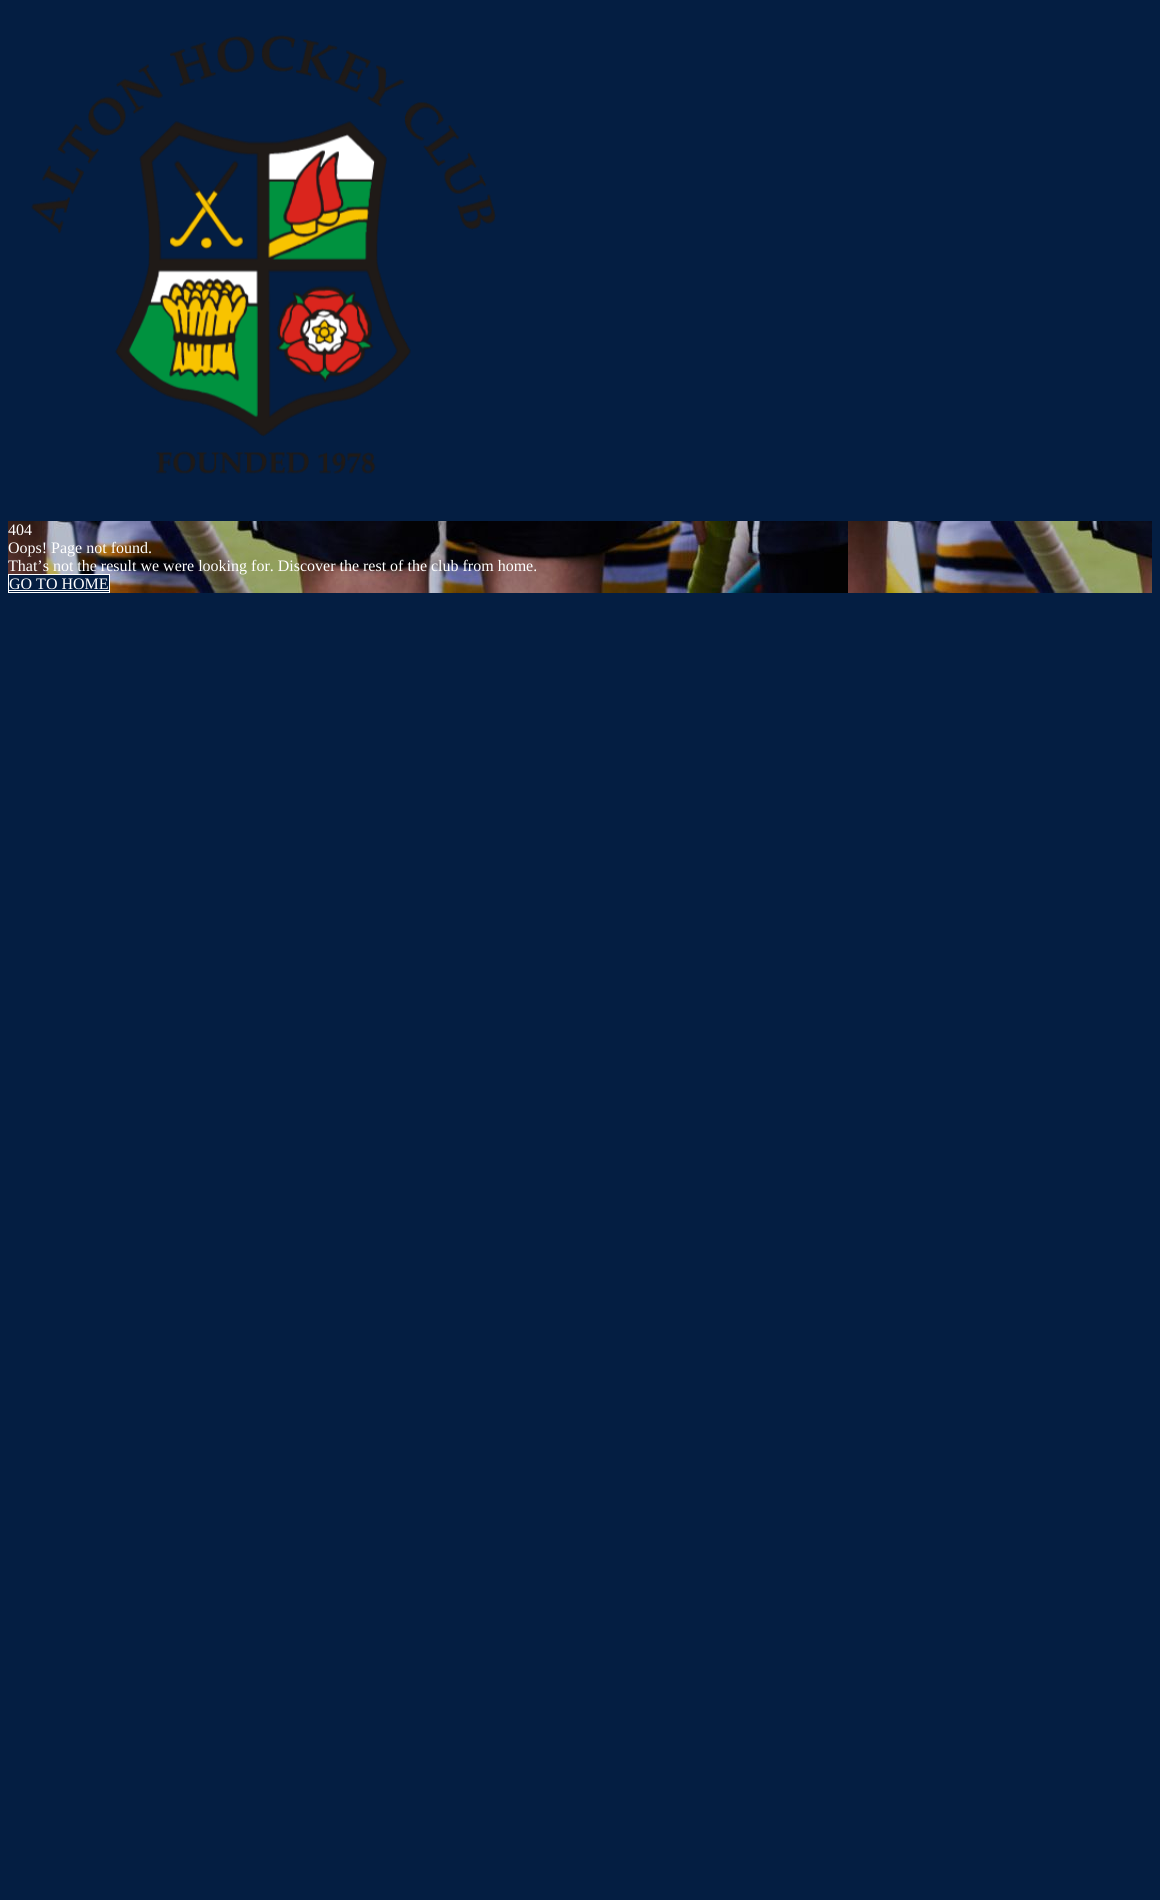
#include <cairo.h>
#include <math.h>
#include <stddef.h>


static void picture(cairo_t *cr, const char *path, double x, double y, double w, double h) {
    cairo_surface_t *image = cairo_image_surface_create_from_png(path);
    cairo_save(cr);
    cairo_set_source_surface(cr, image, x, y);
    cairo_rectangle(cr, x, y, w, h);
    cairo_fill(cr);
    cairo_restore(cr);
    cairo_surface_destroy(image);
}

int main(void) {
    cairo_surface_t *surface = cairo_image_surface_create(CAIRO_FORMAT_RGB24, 1160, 1900);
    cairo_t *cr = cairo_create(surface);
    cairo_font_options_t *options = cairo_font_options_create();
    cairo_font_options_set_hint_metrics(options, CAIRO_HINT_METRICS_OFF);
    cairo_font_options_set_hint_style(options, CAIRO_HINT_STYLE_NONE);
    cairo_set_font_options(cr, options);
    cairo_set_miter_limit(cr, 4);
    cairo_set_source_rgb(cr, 0.016, 0.118, 0.259);
    cairo_paint(cr);
    picture(cr, "img1.png", 31, 35, 465, 439);
    picture(cr, "img2.png", 8, 521, 1144, 72);
    cairo_select_font_face(cr, "Liberation Serif", CAIRO_FONT_SLANT_NORMAL, CAIRO_FONT_WEIGHT_NORMAL);
    cairo_set_font_size(cr, 16);
    cairo_set_source_rgb(cr, 1, 1, 1);
    cairo_move_to(cr, 8, 535);
    cairo_show_text(cr, "404");
    cairo_move_to(cr, 8, 553);
    cairo_show_text(cr, "Oops! Page not found.");
    cairo_move_to(cr, 8, 571);
    cairo_show_text(cr, "That’s not the result we were looking for. Discover the rest of the club from home.");
    cairo_set_source_rgb(cr, 0.016, 0.118, 0.259);
    cairo_rectangle(cr, 8.5, 574.5, 101, 18);
    cairo_fill_preserve(cr);
    cairo_set_source_rgb(cr, 1, 1, 1);
    cairo_set_line_width(cr, 1);
    cairo_stroke(cr);
    cairo_move_to(cr, 9, 589);
    cairo_show_text(cr, "GO TO HOME");
    cairo_rectangle(cr, 9, 590, 100, 1);
    cairo_fill(cr);
    cairo_surface_write_to_png(surface, "page.png");
    cairo_font_options_destroy(options);
    cairo_destroy(cr);
    cairo_surface_destroy(surface);
    return 0;
}
